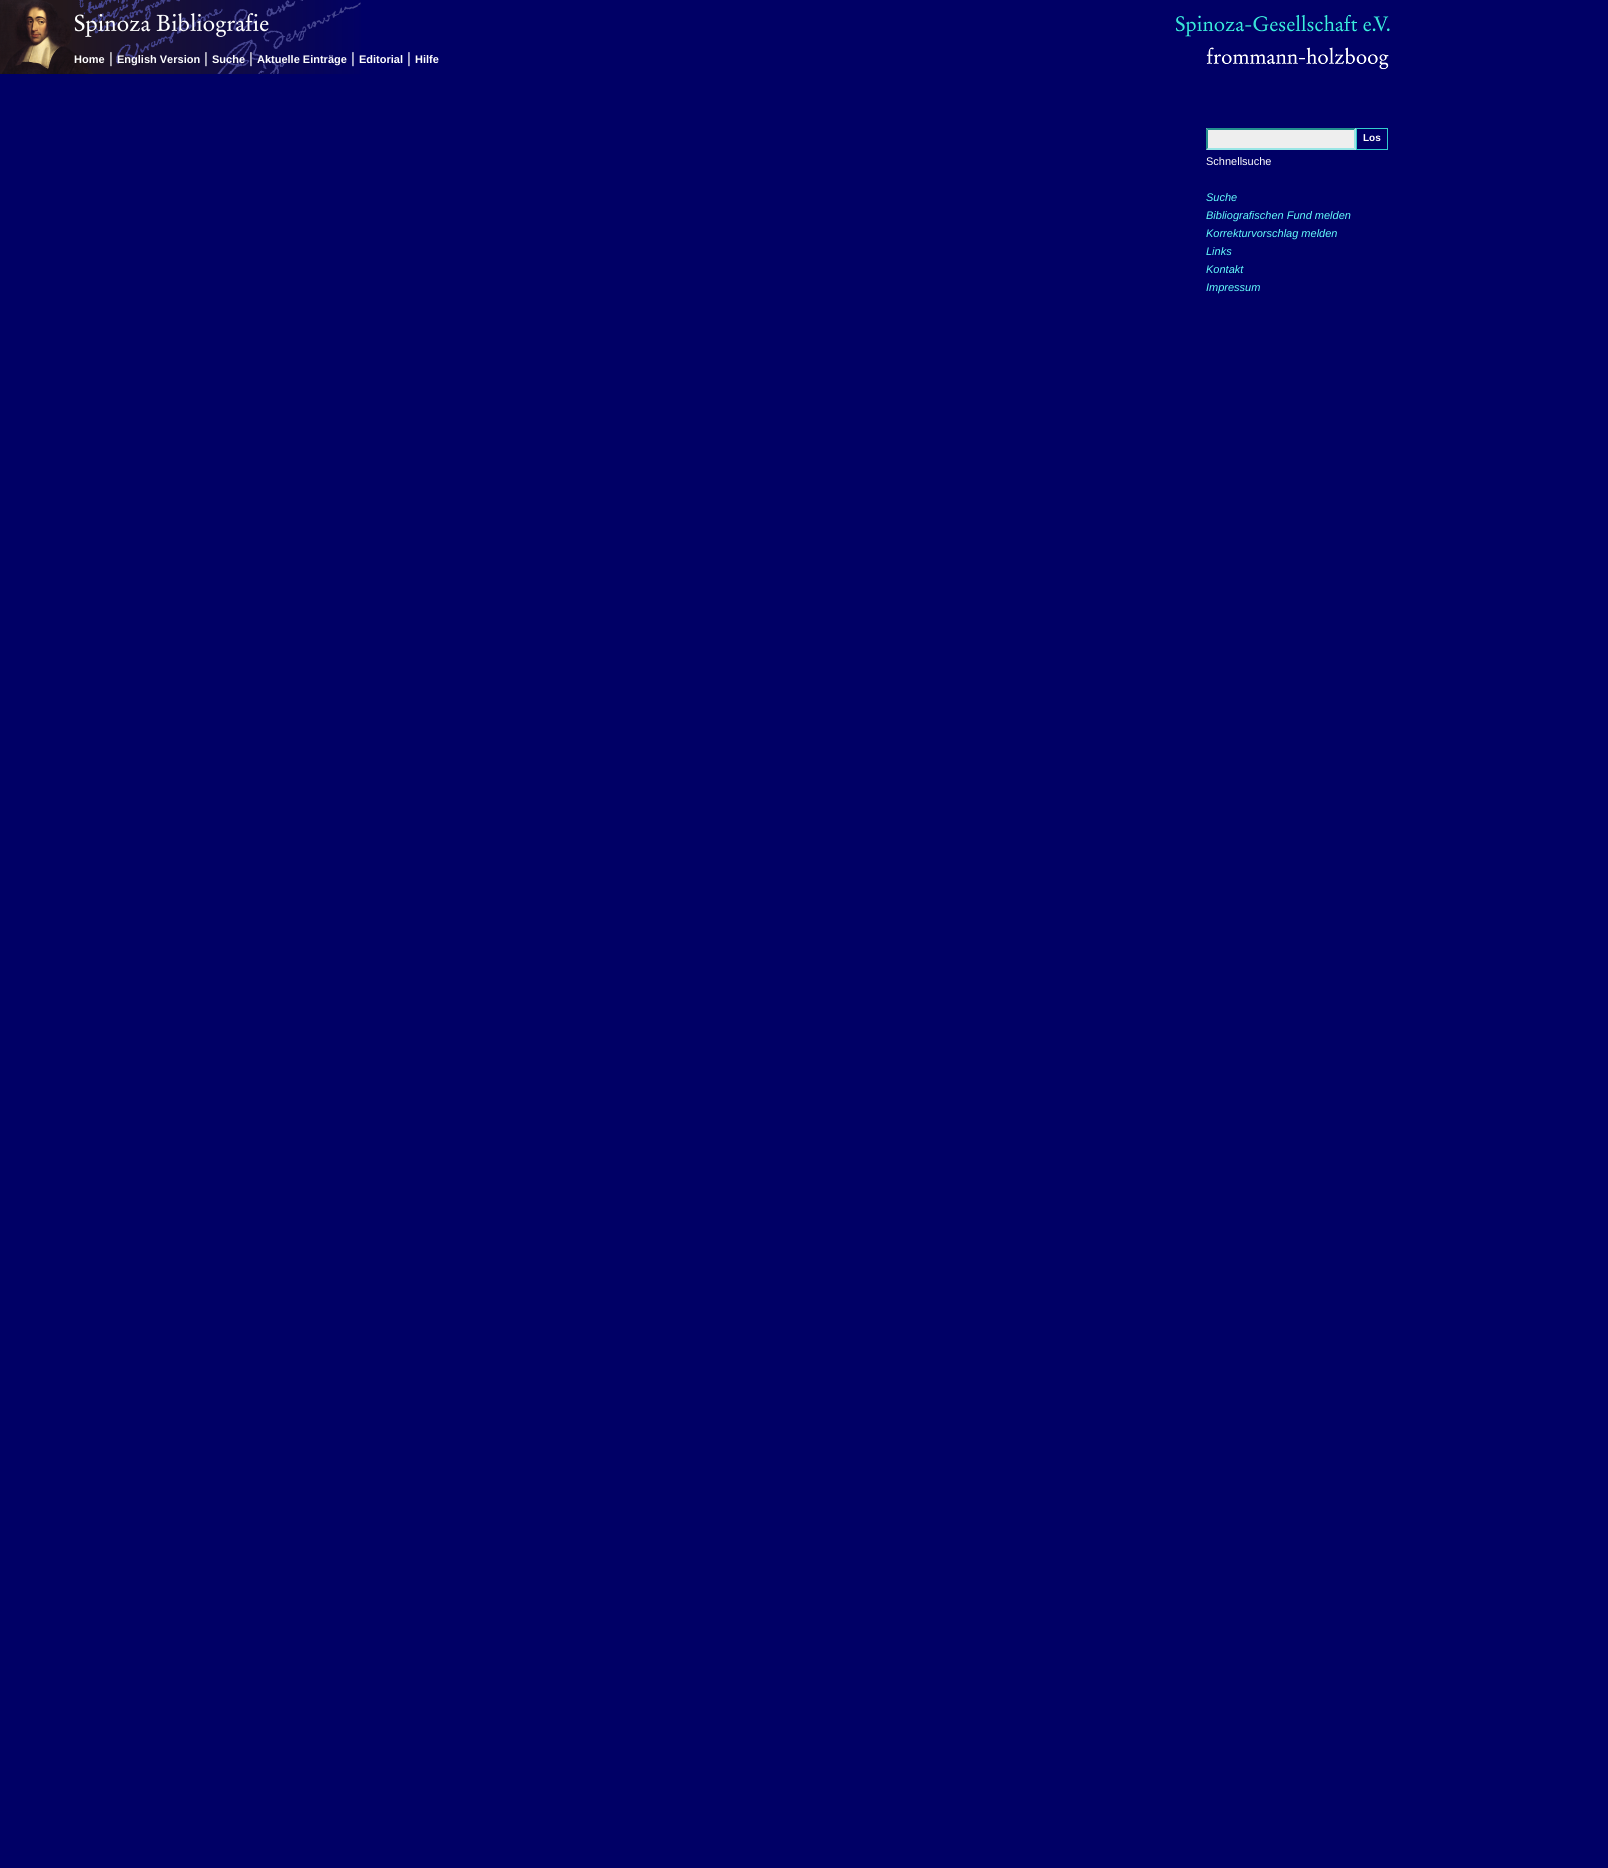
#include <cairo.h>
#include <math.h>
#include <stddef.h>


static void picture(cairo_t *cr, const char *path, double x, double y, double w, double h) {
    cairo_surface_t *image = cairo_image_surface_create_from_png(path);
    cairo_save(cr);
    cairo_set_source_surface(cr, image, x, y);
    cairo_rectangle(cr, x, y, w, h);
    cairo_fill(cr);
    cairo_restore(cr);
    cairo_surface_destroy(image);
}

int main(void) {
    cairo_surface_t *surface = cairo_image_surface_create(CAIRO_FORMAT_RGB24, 1608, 1868);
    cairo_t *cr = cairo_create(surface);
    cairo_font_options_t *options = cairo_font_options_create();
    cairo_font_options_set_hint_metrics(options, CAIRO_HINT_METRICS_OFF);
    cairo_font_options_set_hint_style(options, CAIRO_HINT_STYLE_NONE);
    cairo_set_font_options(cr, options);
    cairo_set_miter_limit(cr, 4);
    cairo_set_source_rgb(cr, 0, 0, 0.4);
    cairo_paint(cr);
    picture(cr, "img1.png", 0, 0, 361, 74);
    picture(cr, "img2.png", 1176, 14, 214, 23);
    cairo_select_font_face(cr, "Liberation Sans", CAIRO_FONT_SLANT_NORMAL, CAIRO_FONT_WEIGHT_BOLD);
    cairo_set_font_size(cr, 11);
    cairo_set_source_rgb(cr, 1, 1, 1);
    cairo_move_to(cr, 74, 63);
    cairo_show_text(cr, "Home");
    cairo_select_font_face(cr, "Liberation Sans", CAIRO_FONT_SLANT_NORMAL, CAIRO_FONT_WEIGHT_NORMAL);
    cairo_set_font_size(cr, 15);
    cairo_move_to(cr, 109, 63);
    cairo_show_text(cr, "|");
    cairo_select_font_face(cr, "Liberation Sans", CAIRO_FONT_SLANT_NORMAL, CAIRO_FONT_WEIGHT_BOLD);
    cairo_set_font_size(cr, 11);
    cairo_move_to(cr, 117, 63);
    cairo_show_text(cr, "English Version");
    cairo_select_font_face(cr, "Liberation Sans", CAIRO_FONT_SLANT_NORMAL, CAIRO_FONT_WEIGHT_NORMAL);
    cairo_set_font_size(cr, 15);
    cairo_move_to(cr, 204, 63);
    cairo_show_text(cr, "|");
    cairo_select_font_face(cr, "Liberation Sans", CAIRO_FONT_SLANT_NORMAL, CAIRO_FONT_WEIGHT_BOLD);
    cairo_set_font_size(cr, 11);
    cairo_move_to(cr, 212, 63);
    cairo_show_text(cr, "Suche");
    cairo_select_font_face(cr, "Liberation Sans", CAIRO_FONT_SLANT_NORMAL, CAIRO_FONT_WEIGHT_NORMAL);
    cairo_set_font_size(cr, 15);
    cairo_move_to(cr, 249, 63);
    cairo_show_text(cr, "|");
    cairo_select_font_face(cr, "Liberation Sans", CAIRO_FONT_SLANT_NORMAL, CAIRO_FONT_WEIGHT_BOLD);
    cairo_set_font_size(cr, 11);
    cairo_move_to(cr, 257, 63);
    cairo_show_text(cr, "Aktuelle Einträge");
    cairo_select_font_face(cr, "Liberation Sans", CAIRO_FONT_SLANT_NORMAL, CAIRO_FONT_WEIGHT_NORMAL);
    cairo_set_font_size(cr, 15);
    cairo_move_to(cr, 351, 63);
    cairo_show_text(cr, "|");
    cairo_select_font_face(cr, "Liberation Sans", CAIRO_FONT_SLANT_NORMAL, CAIRO_FONT_WEIGHT_BOLD);
    cairo_set_font_size(cr, 11);
    cairo_move_to(cr, 359, 63);
    cairo_show_text(cr, "Editorial");
    cairo_select_font_face(cr, "Liberation Sans", CAIRO_FONT_SLANT_NORMAL, CAIRO_FONT_WEIGHT_NORMAL);
    cairo_set_font_size(cr, 15);
    cairo_move_to(cr, 407, 63);
    cairo_show_text(cr, "|");
    cairo_select_font_face(cr, "Liberation Sans", CAIRO_FONT_SLANT_NORMAL, CAIRO_FONT_WEIGHT_BOLD);
    cairo_set_font_size(cr, 11);
    cairo_move_to(cr, 415, 63);
    cairo_show_text(cr, "Hilfe");
    picture(cr, "img3.png", 1206, 47, 183, 23);
    cairo_set_source_rgb(cr, 0.933, 0.933, 0.933);
    cairo_rectangle(cr, 1206, 128, 150, 22);
    cairo_fill(cr);
    cairo_set_source_rgb(cr, 0.141, 0.561, 0.561);
    cairo_new_path(cr);
    cairo_move_to(cr, 1206, 128);
    cairo_line_to(cr, 1356, 128);
    cairo_line_to(cr, 1354, 130);
    cairo_line_to(cr, 1208, 130);
    cairo_close_path(cr);
    cairo_fill(cr);
    cairo_set_source_rgb(cr, 0.6, 0.898, 0.898);
    cairo_new_path(cr);
    cairo_move_to(cr, 1356, 128);
    cairo_line_to(cr, 1356, 150);
    cairo_line_to(cr, 1354, 148);
    cairo_line_to(cr, 1354, 130);
    cairo_close_path(cr);
    cairo_fill(cr);
    cairo_new_path(cr);
    cairo_move_to(cr, 1356, 150);
    cairo_line_to(cr, 1206, 150);
    cairo_line_to(cr, 1208, 148);
    cairo_line_to(cr, 1354, 148);
    cairo_close_path(cr);
    cairo_fill(cr);
    cairo_set_source_rgb(cr, 0.141, 0.561, 0.561);
    cairo_new_path(cr);
    cairo_move_to(cr, 1206, 150);
    cairo_line_to(cr, 1206, 128);
    cairo_line_to(cr, 1208, 130);
    cairo_line_to(cr, 1208, 148);
    cairo_close_path(cr);
    cairo_fill(cr);
    cairo_rectangle(cr, 1356.5, 128.5, 31, 21);
    cairo_set_source_rgb(cr, 0.2, 0.8, 0.8);
    cairo_set_line_width(cr, 1);
    cairo_stroke(cr);
    cairo_set_font_size(cr, 10);
    cairo_set_source_rgb(cr, 1, 1, 1);
    cairo_move_to(cr, 1363, 141);
    cairo_show_text(cr, "Los");
    cairo_select_font_face(cr, "Liberation Sans", CAIRO_FONT_SLANT_NORMAL, CAIRO_FONT_WEIGHT_NORMAL);
    cairo_set_font_size(cr, 11);
    cairo_move_to(cr, 1206, 165);
    cairo_show_text(cr, "Schnellsuche");
    cairo_select_font_face(cr, "Liberation Sans", CAIRO_FONT_SLANT_ITALIC, CAIRO_FONT_WEIGHT_NORMAL);
    cairo_set_source_rgb(cr, 0.388, 0.988, 0.988);
    cairo_move_to(cr, 1206, 201);
    cairo_show_text(cr, "Suche");
    cairo_move_to(cr, 1206, 219);
    cairo_show_text(cr, "Bibliografischen Fund melden");
    cairo_move_to(cr, 1206, 237);
    cairo_show_text(cr, "Korrekturvorschlag melden");
    cairo_move_to(cr, 1206, 255);
    cairo_show_text(cr, "Links");
    cairo_move_to(cr, 1206, 273);
    cairo_show_text(cr, "Kontakt");
    cairo_move_to(cr, 1206, 291);
    cairo_show_text(cr, "Impressum");
    cairo_surface_write_to_png(surface, "page.png");
    cairo_font_options_destroy(options);
    cairo_destroy(cr);
    cairo_surface_destroy(surface);
    return 0;
}
